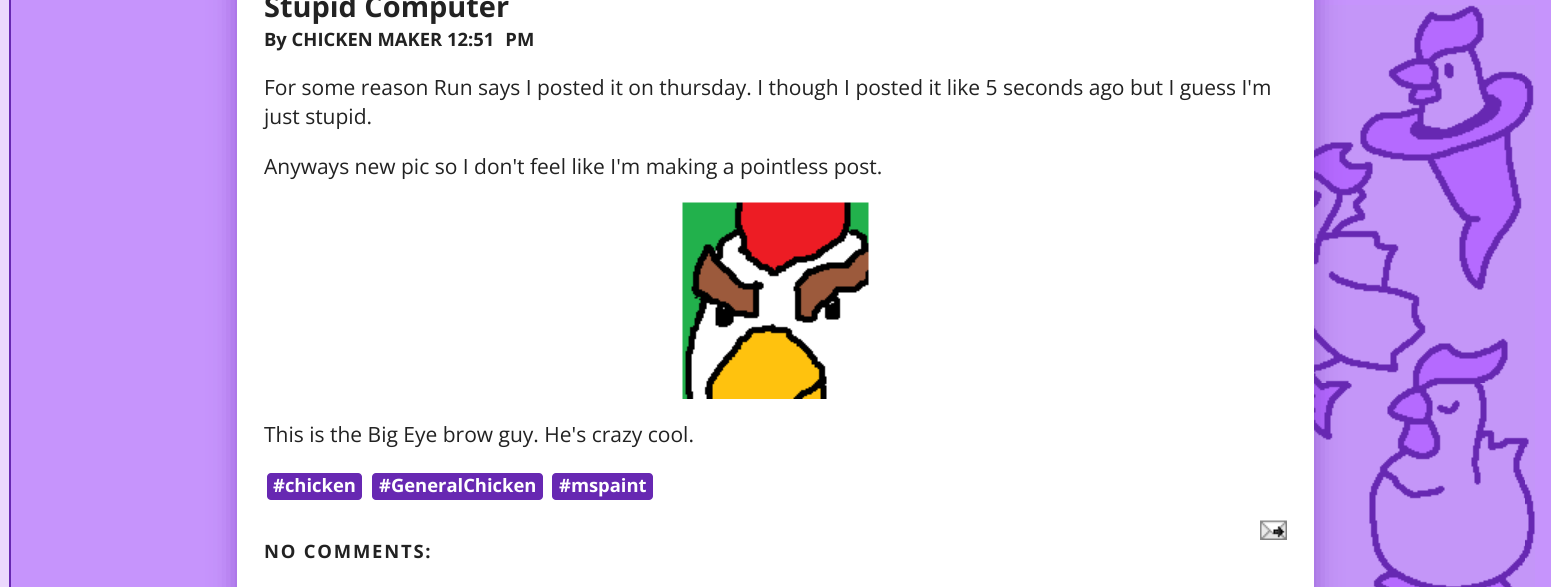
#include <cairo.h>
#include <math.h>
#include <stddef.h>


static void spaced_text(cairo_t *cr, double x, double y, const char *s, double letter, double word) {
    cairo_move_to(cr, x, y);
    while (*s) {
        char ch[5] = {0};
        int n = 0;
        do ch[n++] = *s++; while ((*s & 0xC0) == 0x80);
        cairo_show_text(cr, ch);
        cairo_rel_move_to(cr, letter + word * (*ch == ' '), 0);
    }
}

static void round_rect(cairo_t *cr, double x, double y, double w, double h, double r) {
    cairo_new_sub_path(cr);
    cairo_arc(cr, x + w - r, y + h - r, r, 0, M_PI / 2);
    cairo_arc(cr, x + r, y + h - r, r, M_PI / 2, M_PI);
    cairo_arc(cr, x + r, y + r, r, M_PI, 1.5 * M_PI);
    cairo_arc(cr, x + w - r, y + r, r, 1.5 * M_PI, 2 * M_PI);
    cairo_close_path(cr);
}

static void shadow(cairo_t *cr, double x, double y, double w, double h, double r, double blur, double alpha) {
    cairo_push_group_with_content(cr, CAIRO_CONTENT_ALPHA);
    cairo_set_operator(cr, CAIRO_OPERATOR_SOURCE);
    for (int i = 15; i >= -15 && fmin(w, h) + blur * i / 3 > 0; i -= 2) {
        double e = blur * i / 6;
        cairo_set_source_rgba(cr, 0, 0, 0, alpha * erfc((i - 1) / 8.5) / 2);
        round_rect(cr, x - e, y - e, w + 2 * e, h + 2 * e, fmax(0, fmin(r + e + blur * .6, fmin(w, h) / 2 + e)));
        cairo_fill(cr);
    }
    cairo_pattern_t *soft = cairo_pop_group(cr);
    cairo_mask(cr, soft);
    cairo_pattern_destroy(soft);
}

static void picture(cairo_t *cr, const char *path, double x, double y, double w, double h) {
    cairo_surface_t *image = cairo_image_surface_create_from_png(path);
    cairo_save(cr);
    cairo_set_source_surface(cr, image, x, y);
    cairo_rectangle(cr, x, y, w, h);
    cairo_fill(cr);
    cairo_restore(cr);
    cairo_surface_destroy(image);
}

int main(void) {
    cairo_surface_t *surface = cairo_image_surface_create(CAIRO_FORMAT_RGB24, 1551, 587);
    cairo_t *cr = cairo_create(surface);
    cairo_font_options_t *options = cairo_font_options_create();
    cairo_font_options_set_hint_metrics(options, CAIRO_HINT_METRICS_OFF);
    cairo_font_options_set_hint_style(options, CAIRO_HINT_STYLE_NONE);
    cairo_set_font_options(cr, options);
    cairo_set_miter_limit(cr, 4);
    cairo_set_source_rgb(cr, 0.776, 0.58, 0.988);
    cairo_paint(cr);
    picture(cr, "img1.png", 1314, 5, 221, 582);
    cairo_set_source_rgb(cr, 0.918, 0.847, 0.992);
    cairo_rectangle(cr, 0, 0, 9, 587);
    cairo_fill(cr);
    cairo_set_source_rgb(cr, 0.404, 0.157, 0.698);
    cairo_rectangle(cr, 9, 0, 2, 587);
    cairo_fill(cr);
    cairo_set_source_rgb(cr, 0.404, 0.157, 0.698);
    shadow(cr, 237, -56, 1077, 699, 17, 13, 0.53);
    cairo_set_source_rgb(cr, 1, 1, 1);
    cairo_rectangle(cr, 237, 0, 1077, 587);
    cairo_fill(cr);
    cairo_select_font_face(cr, "Open Sans", CAIRO_FONT_SLANT_NORMAL, CAIRO_FONT_WEIGHT_BOLD);
    cairo_set_font_size(cr, 28.9);
    cairo_set_source_rgb(cr, 0.133, 0.133, 0.133);
    cairo_move_to(cr, 264, 17);
    cairo_show_text(cr, "Stupid Computer");
    cairo_set_font_size(cr, 18.4);
    cairo_move_to(cr, 264, 46);
    cairo_show_text(cr, "By CHICKEN MAKER 12:51 PM");
    cairo_select_font_face(cr, "Open Sans", CAIRO_FONT_SLANT_NORMAL, CAIRO_FONT_WEIGHT_NORMAL);
    cairo_set_font_size(cr, 21);
    cairo_move_to(cr, 264, 95);
    cairo_show_text(cr, "For some reason Run says I posted it on thursday. I though I posted it like 5 seconds ago but I guess I'm");
    cairo_move_to(cr, 264, 124);
    cairo_show_text(cr, "just stupid.");
    cairo_move_to(cr, 264, 174);
    cairo_show_text(cr, "Anyways new pic so I don't feel like I'm making a pointless post.");
    picture(cr, "img2.png", 682, 202, 187, 197);
    cairo_move_to(cr, 264, 442);
    cairo_show_text(cr, "This is the Big Eye brow guy. He's crazy cool.");
    cairo_set_source_rgb(cr, 0.404, 0.157, 0.698);
    round_rect(cr, 267, 473, 95, 27, 4);
    cairo_fill(cr);
    cairo_select_font_face(cr, "Open Sans", CAIRO_FONT_SLANT_NORMAL, CAIRO_FONT_WEIGHT_BOLD);
    cairo_set_font_size(cr, 18.4);
    cairo_set_source_rgb(cr, 1, 1, 1);
    cairo_move_to(cr, 273, 492);
    cairo_show_text(cr, "#chicken");
    cairo_set_source_rgb(cr, 0.404, 0.157, 0.698);
    round_rect(cr, 372, 473, 171, 27, 4);
    cairo_fill(cr);
    cairo_set_source_rgb(cr, 1, 1, 1);
    cairo_move_to(cr, 379, 492);
    cairo_show_text(cr, "#GeneralChicken");
    cairo_set_source_rgb(cr, 0.404, 0.157, 0.698);
    round_rect(cr, 552, 473, 101, 27, 4);
    cairo_fill(cr);
    cairo_set_source_rgb(cr, 1, 1, 1);
    cairo_move_to(cr, 559, 492);
    cairo_show_text(cr, "#mspaint");
    picture(cr, "img3.png", 1260, 520, 27, 20);
    cairo_set_source_rgb(cr, 0.133, 0.133, 0.133);
    spaced_text(cr, 264, 558, "NO COMMENTS:", 1.8, 0);
    cairo_surface_write_to_png(surface, "page.png");
    cairo_font_options_destroy(options);
    cairo_destroy(cr);
    cairo_surface_destroy(surface);
    return 0;
}
